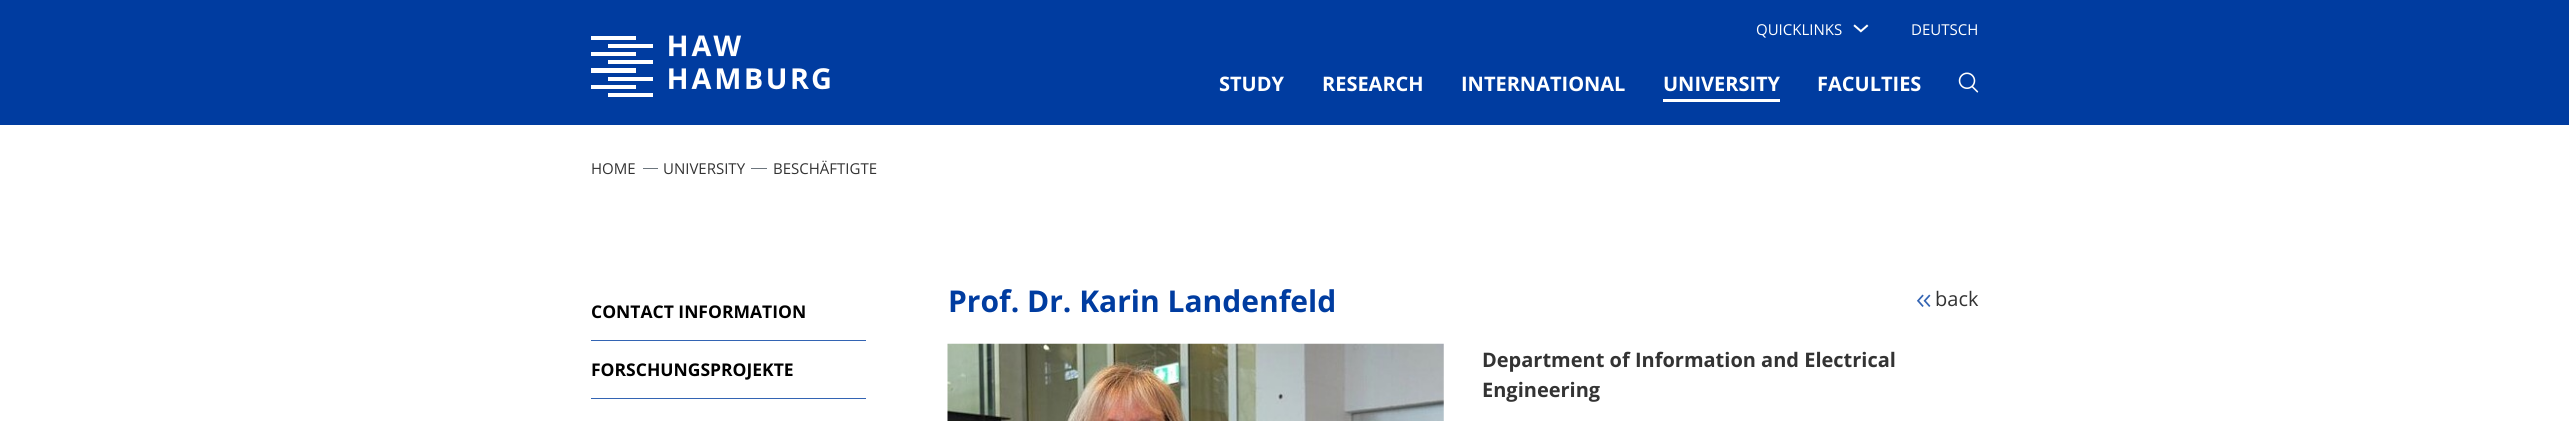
#include <cairo.h>
#include <math.h>
#include <stddef.h>


static void picture(cairo_t *cr, const char *path, double x, double y, double w, double h) {
    cairo_surface_t *image = cairo_image_surface_create_from_png(path);
    cairo_save(cr);
    cairo_set_source_surface(cr, image, x, y);
    cairo_rectangle(cr, x, y, w, h);
    cairo_fill(cr);
    cairo_restore(cr);
    cairo_surface_destroy(image);
}

int main(void) {
    cairo_surface_t *surface = cairo_image_surface_create(CAIRO_FORMAT_RGB24, 2569, 421);
    cairo_t *cr = cairo_create(surface);
    cairo_font_options_t *options = cairo_font_options_create();
    cairo_font_options_set_hint_metrics(options, CAIRO_HINT_METRICS_OFF);
    cairo_font_options_set_hint_style(options, CAIRO_HINT_STYLE_NONE);
    cairo_set_font_options(cr, options);
    cairo_set_miter_limit(cr, 4);
    cairo_set_source_rgb(cr, 1, 1, 1);
    cairo_paint(cr);
    cairo_set_source_rgb(cr, 0, 0.235, 0.627);
    cairo_rectangle(cr, 0, 0, 2569, 125);
    cairo_fill(cr);
    picture(cr, "img1.png", 591, 35, 239, 62);
    cairo_select_font_face(cr, "Open Sans", CAIRO_FONT_SLANT_NORMAL, CAIRO_FONT_WEIGHT_NORMAL);
    cairo_set_font_size(cr, 15);
    cairo_set_source_rgb(cr, 1, 1, 1);
    cairo_move_to(cr, 1756, 35);
    cairo_show_text(cr, "QUICKLINKS");
    picture(cr, "img2.png", 1853, 24, 16, 9);
    cairo_move_to(cr, 1911, 35);
    cairo_show_text(cr, "DEUTSCH");
    cairo_select_font_face(cr, "Open Sans", CAIRO_FONT_SLANT_NORMAL, CAIRO_FONT_WEIGHT_BOLD);
    cairo_set_font_size(cr, 20);
    cairo_move_to(cr, 1219, 91);
    cairo_show_text(cr, "STUDY");
    cairo_move_to(cr, 1322, 91);
    cairo_show_text(cr, "RESEARCH");
    cairo_move_to(cr, 1461, 91);
    cairo_show_text(cr, "INTERNATIONAL");
    cairo_rectangle(cr, 1663, 99, 117, 3);
    cairo_fill(cr);
    cairo_move_to(cr, 1663, 91);
    cairo_show_text(cr, "UNIVERSITY");
    cairo_move_to(cr, 1817, 91);
    cairo_show_text(cr, "FACULTIES");
    picture(cr, "img3.png", 1958, 72, 21, 21);
    cairo_select_font_face(cr, "Open Sans", CAIRO_FONT_SLANT_NORMAL, CAIRO_FONT_WEIGHT_NORMAL);
    cairo_set_font_size(cr, 15);
    cairo_set_source_rgb(cr, 0.2, 0.2, 0.2);
    cairo_move_to(cr, 591, 174);
    cairo_show_text(cr, "HOME");
    cairo_set_source_rgb(cr, 0.424, 0.459, 0.49);
    cairo_rectangle(cr, 643, 168, 15, 1);
    cairo_fill(cr);
    cairo_set_source_rgb(cr, 0.2, 0.2, 0.2);
    cairo_move_to(cr, 663, 174);
    cairo_show_text(cr, "UNIVERSITY");
    cairo_set_source_rgb(cr, 0.424, 0.459, 0.49);
    cairo_rectangle(cr, 751, 168, 16, 1);
    cairo_fill(cr);
    cairo_set_source_rgb(cr, 0.2, 0.2, 0.2);
    cairo_move_to(cr, 773, 174);
    cairo_show_text(cr, "BESCHÄFTIGTE");
    cairo_set_source_rgb(cr, 0.2, 0.392, 0.702);
    cairo_rectangle(cr, 591, 340, 275, 1);
    cairo_fill(cr);
    cairo_select_font_face(cr, "Open Sans", CAIRO_FONT_SLANT_NORMAL, CAIRO_FONT_WEIGHT_BOLD);
    cairo_set_font_size(cr, 17.5);
    cairo_set_source_rgb(cr, 0, 0, 0);
    cairo_move_to(cr, 591, 318);
    cairo_show_text(cr, "CONTACT INFORMATION");
    cairo_set_source_rgb(cr, 0.2, 0.392, 0.702);
    cairo_rectangle(cr, 591, 398, 275, 1);
    cairo_fill(cr);
    cairo_set_source_rgb(cr, 0, 0, 0);
    cairo_move_to(cr, 591, 376);
    cairo_show_text(cr, "FORSCHUNGSPROJEKTE");
    cairo_set_font_size(cr, 30);
    cairo_set_source_rgb(cr, 0, 0.235, 0.627);
    cairo_move_to(cr, 948, 312);
    cairo_show_text(cr, "Prof. Dr. Karin Landenfeld");
    picture(cr, "img4.png", 1916, 294, 15, 13);
    cairo_select_font_face(cr, "Open Sans", CAIRO_FONT_SLANT_NORMAL, CAIRO_FONT_WEIGHT_NORMAL);
    cairo_set_font_size(cr, 20);
    cairo_set_source_rgb(cr, 0.2, 0.2, 0.2);
    cairo_move_to(cr, 1935, 306);
    cairo_show_text(cr, "back");
    picture(cr, "img5.png", 947, 343, 497, 78);
    cairo_select_font_face(cr, "Open Sans", CAIRO_FONT_SLANT_NORMAL, CAIRO_FONT_WEIGHT_BOLD);
    cairo_move_to(cr, 1482, 367);
    cairo_show_text(cr, "Department of Information and Electrical");
    cairo_move_to(cr, 1482, 397);
    cairo_show_text(cr, "Engineering");
    cairo_surface_write_to_png(surface, "page.png");
    cairo_font_options_destroy(options);
    cairo_destroy(cr);
    cairo_surface_destroy(surface);
    return 0;
}
